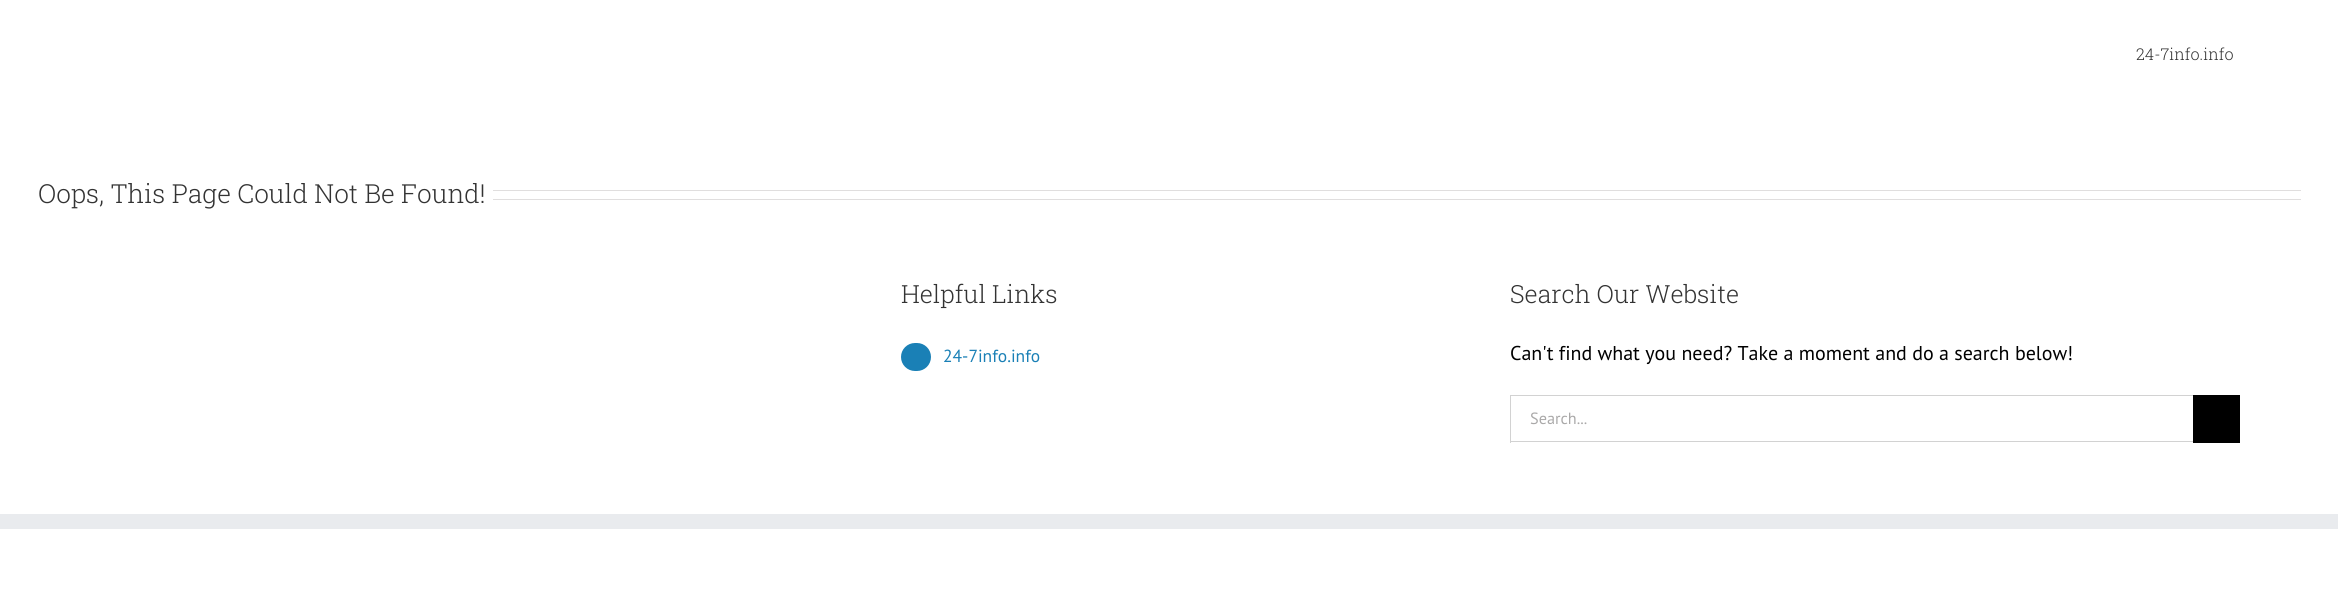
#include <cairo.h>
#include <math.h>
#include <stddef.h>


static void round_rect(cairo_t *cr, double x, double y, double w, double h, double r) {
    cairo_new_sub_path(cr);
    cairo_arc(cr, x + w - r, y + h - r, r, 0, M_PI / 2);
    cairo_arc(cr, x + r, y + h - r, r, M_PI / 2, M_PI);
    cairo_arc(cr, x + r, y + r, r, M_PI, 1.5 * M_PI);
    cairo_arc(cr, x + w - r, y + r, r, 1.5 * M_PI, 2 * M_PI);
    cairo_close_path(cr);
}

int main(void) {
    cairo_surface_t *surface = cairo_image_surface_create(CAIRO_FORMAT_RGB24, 2338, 603);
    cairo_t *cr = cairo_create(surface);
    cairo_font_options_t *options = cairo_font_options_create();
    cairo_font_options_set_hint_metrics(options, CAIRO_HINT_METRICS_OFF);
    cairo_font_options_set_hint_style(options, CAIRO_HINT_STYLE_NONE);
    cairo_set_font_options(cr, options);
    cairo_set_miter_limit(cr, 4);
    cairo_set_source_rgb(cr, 1, 1, 1);
    cairo_paint(cr);
    cairo_select_font_face(cr, "Roboto Slab Light", CAIRO_FONT_SLANT_NORMAL, CAIRO_FONT_WEIGHT_NORMAL);
    cairo_set_font_size(cr, 16.25);
    cairo_set_source_rgb(cr, 0.2, 0.2, 0.2);
    cairo_move_to(cr, 2136, 60);
    cairo_show_text(cr, "24-7info.info");
    cairo_set_font_size(cr, 26.25);
    cairo_move_to(cr, 38, 203);
    cairo_show_text(cr, "Oops, This Page Could Not Be Found!");
    cairo_set_source_rgb(cr, 0.878, 0.871, 0.871);
    cairo_rectangle(cr, 493, 190, 1808, 1);
    cairo_fill(cr);
    cairo_rectangle(cr, 493, 199, 1808, 1);
    cairo_fill(cr);
    cairo_set_font_size(cr, 25);
    cairo_set_source_rgb(cr, 0.2, 0.2, 0.2);
    cairo_move_to(cr, 901, 303);
    cairo_show_text(cr, "Helpful Links");
    cairo_set_source_rgb(cr, 0.102, 0.502, 0.714);
    round_rect(cr, 901, 343, 30, 28, 14);
    cairo_fill(cr);
    cairo_select_font_face(cr, "PT Sans", CAIRO_FONT_SLANT_NORMAL, CAIRO_FONT_WEIGHT_NORMAL);
    cairo_set_font_size(cr, 17.5);
    cairo_move_to(cr, 943, 362);
    cairo_show_text(cr, "24-7info.info");
    cairo_select_font_face(cr, "Roboto Slab Light", CAIRO_FONT_SLANT_NORMAL, CAIRO_FONT_WEIGHT_NORMAL);
    cairo_set_font_size(cr, 25);
    cairo_set_source_rgb(cr, 0.2, 0.2, 0.2);
    cairo_move_to(cr, 1510, 303);
    cairo_show_text(cr, "Search Our Website");
    cairo_select_font_face(cr, "PT Sans", CAIRO_FONT_SLANT_NORMAL, CAIRO_FONT_WEIGHT_NORMAL);
    cairo_set_font_size(cr, 20);
    cairo_set_source_rgb(cr, 0, 0, 0);
    cairo_move_to(cr, 1510, 360);
    cairo_show_text(cr, "Can't find what you need? Take a moment and do a search below!");
    cairo_set_source_rgb(cr, 0.824, 0.824, 0.824);
    cairo_rectangle(cr, 1510, 395, 683, 1);
    cairo_fill(cr);
    cairo_rectangle(cr, 1510, 441, 683, 1);
    cairo_fill(cr);
    cairo_rectangle(cr, 1510, 395, 1, 48);
    cairo_fill(cr);
    cairo_set_font_size(cr, 16.25);
    cairo_set_source_rgb(cr, 0.667, 0.663, 0.663);
    cairo_move_to(cr, 1530, 424);
    cairo_show_text(cr, "Search...");
    cairo_set_source_rgb(cr, 0, 0, 0);
    cairo_rectangle(cr, 2193, 395, 47, 48);
    cairo_fill(cr);
    cairo_set_source_rgb(cr, 0.914, 0.918, 0.933);
    cairo_rectangle(cr, 0, 514, 2338, 15);
    cairo_fill(cr);
    cairo_surface_write_to_png(surface, "page.png");
    cairo_font_options_destroy(options);
    cairo_destroy(cr);
    cairo_surface_destroy(surface);
    return 0;
}
